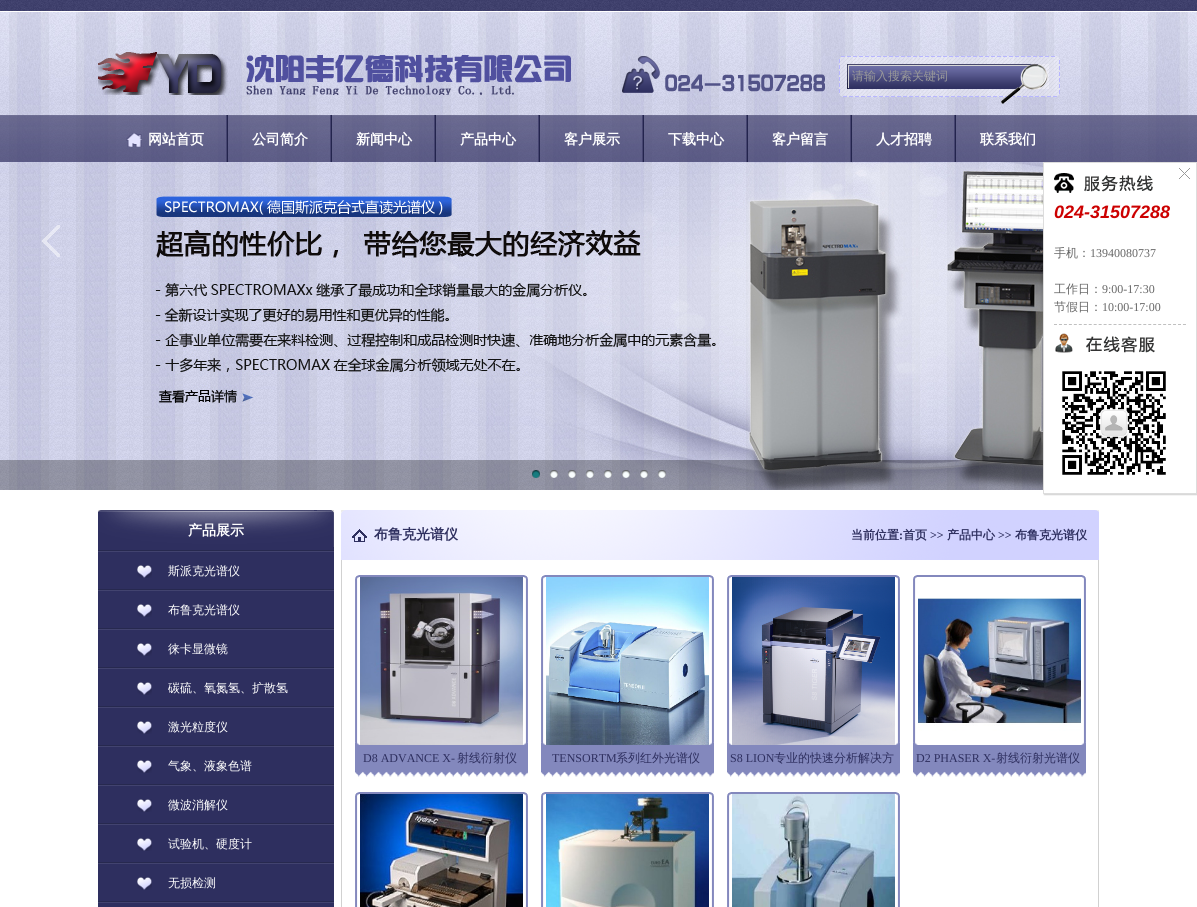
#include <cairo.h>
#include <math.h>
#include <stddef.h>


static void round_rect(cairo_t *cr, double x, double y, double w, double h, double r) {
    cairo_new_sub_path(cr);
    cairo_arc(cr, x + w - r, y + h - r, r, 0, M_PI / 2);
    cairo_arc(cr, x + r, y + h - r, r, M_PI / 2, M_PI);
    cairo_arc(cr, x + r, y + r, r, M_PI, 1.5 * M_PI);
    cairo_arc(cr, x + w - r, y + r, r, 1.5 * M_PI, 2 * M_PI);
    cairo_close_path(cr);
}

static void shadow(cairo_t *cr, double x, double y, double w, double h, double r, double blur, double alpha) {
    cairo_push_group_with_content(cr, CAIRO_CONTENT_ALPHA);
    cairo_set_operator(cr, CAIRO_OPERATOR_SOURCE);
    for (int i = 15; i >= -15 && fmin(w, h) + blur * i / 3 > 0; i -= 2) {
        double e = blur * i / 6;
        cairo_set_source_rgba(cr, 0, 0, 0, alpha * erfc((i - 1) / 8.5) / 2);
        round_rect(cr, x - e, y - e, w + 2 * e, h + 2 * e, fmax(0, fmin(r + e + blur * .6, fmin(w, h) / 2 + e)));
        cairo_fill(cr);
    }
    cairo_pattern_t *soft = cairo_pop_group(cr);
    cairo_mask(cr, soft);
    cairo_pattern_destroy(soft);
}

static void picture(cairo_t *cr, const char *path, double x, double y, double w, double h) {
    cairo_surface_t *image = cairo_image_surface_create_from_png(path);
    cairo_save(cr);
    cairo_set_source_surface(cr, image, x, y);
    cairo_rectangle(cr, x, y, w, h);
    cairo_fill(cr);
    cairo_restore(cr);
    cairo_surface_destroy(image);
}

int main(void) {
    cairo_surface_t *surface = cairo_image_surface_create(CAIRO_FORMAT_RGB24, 1197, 907);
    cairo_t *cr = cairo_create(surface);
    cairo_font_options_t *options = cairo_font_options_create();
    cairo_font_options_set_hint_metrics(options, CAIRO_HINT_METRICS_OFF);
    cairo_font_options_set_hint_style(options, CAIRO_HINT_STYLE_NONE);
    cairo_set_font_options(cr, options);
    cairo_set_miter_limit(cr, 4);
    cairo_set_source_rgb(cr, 1, 1, 1);
    cairo_paint(cr);
    picture(cr, "img1.png", 0, 0, 1197, 490);
    picture(cr, "img2.png", 42, 225, 18, 32);
    cairo_set_source_rgba(cr, 0, 0, 0, 0.3);
    cairo_rectangle(cr, 0, 460, 1043, 30);
    cairo_fill(cr);
    picture(cr, "img3.png", 532, 470, 8, 8);
    picture(cr, "img4.png", 550, 470, 8, 8);
    picture(cr, "img5.png", 568, 470, 8, 8);
    picture(cr, "img6.png", 586, 470, 8, 8);
    picture(cr, "img7.png", 604, 470, 8, 8);
    picture(cr, "img8.png", 622, 470, 8, 8);
    picture(cr, "img9.png", 640, 470, 8, 8);
    picture(cr, "img10.png", 658, 470, 8, 8);
    picture(cr, "img11.png", 98, 52, 473, 43);
    picture(cr, "img12.png", 622, 56, 203, 37);
    picture(cr, "img13.png", 839, 56, 221, 48);
    picture(cr, "img14.png", 847, 64, 167, 25);
    cairo_select_font_face(cr, "WenQuanYi Zen Hei Medium", CAIRO_FONT_SLANT_NORMAL, CAIRO_FONT_WEIGHT_NORMAL);
    cairo_set_font_size(cr, 12);
    cairo_set_source_rgb(cr, 0.6, 0.6, 0.6);
    cairo_move_to(cr, 852, 80);
    cairo_show_text(cr, "请输入搜索关键词");
    picture(cr, "img15.png", 1020, 64, 29, 25);
    picture(cr, "img16.png", 0, 115, 1197, 47);
    picture(cr, "img17.png", 126, 133, 16, 14);
    picture(cr, "img18.png", 226, 115, 2, 47);
    cairo_select_font_face(cr, "WenQuanYi Zen Hei", CAIRO_FONT_SLANT_NORMAL, CAIRO_FONT_WEIGHT_BOLD);
    cairo_set_font_size(cr, 14);
    cairo_set_source_rgb(cr, 1, 1, 1);
    cairo_move_to(cr, 148, 144);
    cairo_show_text(cr, "网站首页");
    picture(cr, "img18.png", 330, 115, 2, 47);
    cairo_move_to(cr, 252, 144);
    cairo_show_text(cr, "公司简介");
    picture(cr, "img18.png", 434, 115, 2, 47);
    cairo_move_to(cr, 356, 144);
    cairo_show_text(cr, "新闻中心");
    picture(cr, "img18.png", 538, 115, 2, 47);
    cairo_move_to(cr, 460, 144);
    cairo_show_text(cr, "产品中心");
    picture(cr, "img18.png", 642, 115, 2, 47);
    cairo_move_to(cr, 564, 144);
    cairo_show_text(cr, "客户展示");
    picture(cr, "img18.png", 746, 115, 2, 47);
    cairo_move_to(cr, 668, 144);
    cairo_show_text(cr, "下载中心");
    picture(cr, "img18.png", 850, 115, 2, 47);
    cairo_move_to(cr, 772, 144);
    cairo_show_text(cr, "客户留言");
    picture(cr, "img18.png", 954, 115, 2, 47);
    cairo_move_to(cr, 876, 144);
    cairo_show_text(cr, "人才招聘");
    cairo_move_to(cr, 980, 144);
    cairo_show_text(cr, "联系我们");
    cairo_set_source_rgb(cr, 0.831, 0.831, 0.831);
    shadow(cr, 1044, 163, 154, 332, 0, 0.5, 1);
    cairo_set_source_rgb(cr, 1, 1, 1);
    cairo_rectangle(cr, 1043.5, 162.5, 153, 331);
    cairo_fill_preserve(cr);
    cairo_set_source_rgb(cr, 0.867, 0.867, 0.867);
    cairo_set_line_width(cr, 1);
    cairo_stroke(cr);
    picture(cr, "img19.png", 1054, 173, 99, 20);
    picture(cr, "img20.png", 1179, 168, 11, 11);
    cairo_select_font_face(cr, "Liberation Sans", CAIRO_FONT_SLANT_ITALIC, CAIRO_FONT_WEIGHT_BOLD);
    cairo_set_font_size(cr, 18);
    cairo_set_source_rgb(cr, 0.8, 0, 0);
    cairo_move_to(cr, 1054, 218);
    cairo_show_text(cr, "024-31507288");
    cairo_select_font_face(cr, "WenQuanYi Zen Hei Medium", CAIRO_FONT_SLANT_NORMAL, CAIRO_FONT_WEIGHT_NORMAL);
    cairo_set_font_size(cr, 12);
    cairo_set_source_rgb(cr, 0.4, 0.4, 0.4);
    cairo_move_to(cr, 1054, 257);
    cairo_show_text(cr, "手机：");
    cairo_select_font_face(cr, "Liberation Serif", CAIRO_FONT_SLANT_NORMAL, CAIRO_FONT_WEIGHT_NORMAL);
    cairo_move_to(cr, 1090, 257);
    cairo_show_text(cr, "13940080737");
    cairo_select_font_face(cr, "WenQuanYi Zen Hei Medium", CAIRO_FONT_SLANT_NORMAL, CAIRO_FONT_WEIGHT_NORMAL);
    cairo_move_to(cr, 1054, 293);
    cairo_show_text(cr, "工作日：");
    cairo_select_font_face(cr, "Liberation Serif", CAIRO_FONT_SLANT_NORMAL, CAIRO_FONT_WEIGHT_NORMAL);
    cairo_move_to(cr, 1102, 293);
    cairo_show_text(cr, "9:00-17:30");
    cairo_select_font_face(cr, "WenQuanYi Zen Hei Medium", CAIRO_FONT_SLANT_NORMAL, CAIRO_FONT_WEIGHT_NORMAL);
    cairo_move_to(cr, 1054, 311);
    cairo_show_text(cr, "节假日：");
    cairo_select_font_face(cr, "Liberation Serif", CAIRO_FONT_SLANT_NORMAL, CAIRO_FONT_WEIGHT_NORMAL);
    cairo_move_to(cr, 1102, 311);
    cairo_show_text(cr, "10:00-17:00");
    cairo_new_path(cr);
    cairo_move_to(cr, 1054, 324.5);
    cairo_line_to(cr, 1186, 324.5);
    cairo_set_source_rgb(cr, 0.753, 0.753, 0.753);
    cairo_set_dash(cr, (double[]){3, 1.96}, 2, 0);
    cairo_stroke(cr);
    picture(cr, "img21.png", 1055, 333, 100, 20);
    picture(cr, "img22.png", 1062, 371, 104, 104);
    picture(cr, "img23.png", 98, 510, 236, 42);
    cairo_select_font_face(cr, "WenQuanYi Zen Hei", CAIRO_FONT_SLANT_NORMAL, CAIRO_FONT_WEIGHT_BOLD);
    cairo_set_font_size(cr, 14);
    cairo_set_source_rgb(cr, 1, 1, 1);
    cairo_move_to(cr, 188, 535);
    cairo_show_text(cr, "产品展示");
    picture(cr, "img24.png", 98, 552, 236, 39);
    picture(cr, "img25.png", 137, 565, 15, 13);
    cairo_select_font_face(cr, "WenQuanYi Zen Hei Medium", CAIRO_FONT_SLANT_NORMAL, CAIRO_FONT_WEIGHT_NORMAL);
    cairo_set_font_size(cr, 12);
    cairo_move_to(cr, 168, 575);
    cairo_show_text(cr, "斯派克光谱仪");
    picture(cr, "img24.png", 98, 591, 236, 39);
    picture(cr, "img25.png", 137, 604, 15, 13);
    cairo_move_to(cr, 168, 614);
    cairo_show_text(cr, "布鲁克光谱仪");
    picture(cr, "img24.png", 98, 630, 236, 39);
    picture(cr, "img25.png", 137, 643, 15, 13);
    cairo_move_to(cr, 168, 653);
    cairo_show_text(cr, "徕卡显微镜");
    picture(cr, "img24.png", 98, 669, 236, 39);
    picture(cr, "img25.png", 137, 682, 15, 13);
    cairo_move_to(cr, 168, 692);
    cairo_show_text(cr, "碳硫、氧氮氢、扩散氢");
    picture(cr, "img24.png", 98, 708, 236, 39);
    picture(cr, "img25.png", 137, 721, 15, 13);
    cairo_move_to(cr, 168, 731);
    cairo_show_text(cr, "激光粒度仪");
    picture(cr, "img24.png", 98, 747, 236, 39);
    picture(cr, "img25.png", 137, 760, 15, 13);
    cairo_move_to(cr, 168, 770);
    cairo_show_text(cr, "气象、液象色谱");
    picture(cr, "img24.png", 98, 786, 236, 39);
    picture(cr, "img25.png", 137, 799, 15, 13);
    cairo_move_to(cr, 168, 809);
    cairo_show_text(cr, "微波消解仪");
    picture(cr, "img24.png", 98, 825, 236, 39);
    picture(cr, "img25.png", 137, 838, 15, 13);
    cairo_move_to(cr, 168, 848);
    cairo_show_text(cr, "试验机、硬度计");
    picture(cr, "img24.png", 98, 864, 236, 39);
    picture(cr, "img25.png", 137, 877, 15, 13);
    cairo_move_to(cr, 168, 887);
    cairo_show_text(cr, "无损检测");
    cairo_set_source_rgb(cr, 0.18, 0.184, 0.373);
    cairo_rectangle(cr, 98, 903, 236, 4);
    cairo_fill(cr);
    picture(cr, "img26.png", 341, 510, 758, 50);
    cairo_select_font_face(cr, "WenQuanYi Zen Hei", CAIRO_FONT_SLANT_NORMAL, CAIRO_FONT_WEIGHT_BOLD);
    cairo_set_font_size(cr, 14);
    cairo_move_to(cr, 374, 539);
    cairo_show_text(cr, "布鲁克光谱仪");
    cairo_set_font_size(cr, 12);
    cairo_move_to(cr, 851, 539);
    cairo_show_text(cr, "当前位置");
    cairo_select_font_face(cr, "Liberation Serif", CAIRO_FONT_SLANT_NORMAL, CAIRO_FONT_WEIGHT_BOLD);
    cairo_move_to(cr, 899, 539);
    cairo_show_text(cr, ":");
    cairo_select_font_face(cr, "WenQuanYi Zen Hei", CAIRO_FONT_SLANT_NORMAL, CAIRO_FONT_WEIGHT_BOLD);
    cairo_move_to(cr, 903, 539);
    cairo_show_text(cr, "首页");
    cairo_select_font_face(cr, "Liberation Serif", CAIRO_FONT_SLANT_NORMAL, CAIRO_FONT_WEIGHT_BOLD);
    cairo_move_to(cr, 930, 539);
    cairo_show_text(cr, ">>");
    cairo_select_font_face(cr, "WenQuanYi Zen Hei", CAIRO_FONT_SLANT_NORMAL, CAIRO_FONT_WEIGHT_BOLD);
    cairo_move_to(cr, 947, 539);
    cairo_show_text(cr, "产品中心");
    cairo_select_font_face(cr, "Liberation Serif", CAIRO_FONT_SLANT_NORMAL, CAIRO_FONT_WEIGHT_BOLD);
    cairo_move_to(cr, 998, 539);
    cairo_show_text(cr, ">>");
    cairo_select_font_face(cr, "WenQuanYi Zen Hei", CAIRO_FONT_SLANT_NORMAL, CAIRO_FONT_WEIGHT_BOLD);
    cairo_move_to(cr, 1015, 539);
    cairo_show_text(cr, "布鲁克光谱仪");
    cairo_set_source_rgb(cr, 0.82, 0.82, 0.82);
    cairo_rectangle(cr, 1098, 560, 1, 347);
    cairo_fill(cr);
    cairo_rectangle(cr, 341, 560, 1, 347);
    cairo_fill(cr);
    picture(cr, "img27.png", 355, 575, 173, 202);
    picture(cr, "img28.png", 360, 577, 163, 168);
    cairo_select_font_face(cr, "Liberation Serif", CAIRO_FONT_SLANT_NORMAL, CAIRO_FONT_WEIGHT_NORMAL);
    cairo_set_source_rgb(cr, 0.18, 0.184, 0.373);
    cairo_move_to(cr, 363, 762);
    cairo_show_text(cr, "D8 ADVANCE X-");
    cairo_select_font_face(cr, "WenQuanYi Zen Hei Medium", CAIRO_FONT_SLANT_NORMAL, CAIRO_FONT_WEIGHT_NORMAL);
    cairo_move_to(cr, 457, 762);
    cairo_show_text(cr, "射线衍射仪");
    picture(cr, "img27.png", 541, 575, 173, 202);
    picture(cr, "img29.png", 546, 577, 163, 168);
    cairo_select_font_face(cr, "Liberation Serif", CAIRO_FONT_SLANT_NORMAL, CAIRO_FONT_WEIGHT_NORMAL);
    cairo_move_to(cr, 552, 762);
    cairo_show_text(cr, "TENSORTM");
    cairo_select_font_face(cr, "WenQuanYi Zen Hei Medium", CAIRO_FONT_SLANT_NORMAL, CAIRO_FONT_WEIGHT_NORMAL);
    cairo_move_to(cr, 616, 762);
    cairo_show_text(cr, "系列红外光谱仪");
    picture(cr, "img27.png", 727, 575, 173, 202);
    picture(cr, "img30.png", 732, 577, 163, 168);
    cairo_select_font_face(cr, "Liberation Serif", CAIRO_FONT_SLANT_NORMAL, CAIRO_FONT_WEIGHT_NORMAL);
    cairo_move_to(cr, 730, 762);
    cairo_show_text(cr, "S8 LION");
    cairo_select_font_face(cr, "WenQuanYi Zen Hei Medium", CAIRO_FONT_SLANT_NORMAL, CAIRO_FONT_WEIGHT_NORMAL);
    cairo_move_to(cr, 774, 762);
    cairo_show_text(cr, "专业的快速分析解决方");
    picture(cr, "img27.png", 913, 575, 173, 202);
    picture(cr, "img31.png", 918, 598, 163, 147);
    cairo_select_font_face(cr, "Liberation Serif", CAIRO_FONT_SLANT_NORMAL, CAIRO_FONT_WEIGHT_NORMAL);
    cairo_move_to(cr, 916, 762);
    cairo_show_text(cr, "D2 PHASER X-");
    cairo_select_font_face(cr, "WenQuanYi Zen Hei Medium", CAIRO_FONT_SLANT_NORMAL, CAIRO_FONT_WEIGHT_NORMAL);
    cairo_move_to(cr, 996, 762);
    cairo_show_text(cr, "射线衍射光谱仪");
    picture(cr, "img32.png", 355, 792, 173, 115);
    picture(cr, "img33.png", 360, 794, 163, 113);
    picture(cr, "img32.png", 541, 792, 173, 115);
    picture(cr, "img34.png", 546, 794, 163, 113);
    picture(cr, "img32.png", 727, 792, 173, 115);
    picture(cr, "img35.png", 732, 794, 163, 113);
    cairo_surface_write_to_png(surface, "page.png");
    cairo_font_options_destroy(options);
    cairo_destroy(cr);
    cairo_surface_destroy(surface);
    return 0;
}
